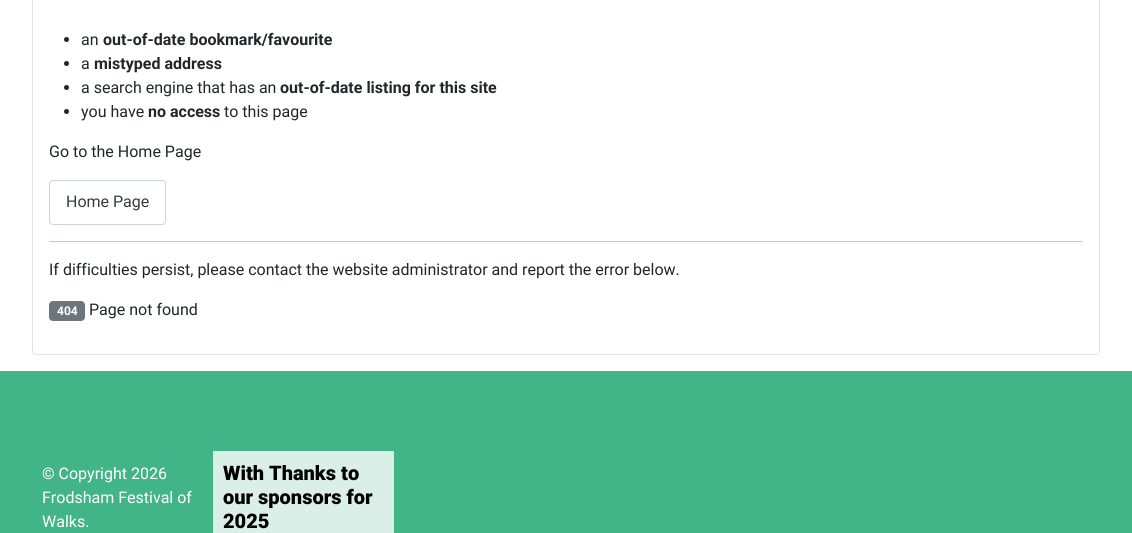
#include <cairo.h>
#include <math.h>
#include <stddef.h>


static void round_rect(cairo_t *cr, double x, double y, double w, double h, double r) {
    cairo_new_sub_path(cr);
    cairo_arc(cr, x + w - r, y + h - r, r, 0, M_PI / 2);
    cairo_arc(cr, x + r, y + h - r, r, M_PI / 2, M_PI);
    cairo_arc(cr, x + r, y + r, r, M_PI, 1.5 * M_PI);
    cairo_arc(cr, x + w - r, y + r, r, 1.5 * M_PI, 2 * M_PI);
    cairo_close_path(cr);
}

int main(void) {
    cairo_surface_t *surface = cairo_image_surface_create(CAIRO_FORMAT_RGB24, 1132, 533);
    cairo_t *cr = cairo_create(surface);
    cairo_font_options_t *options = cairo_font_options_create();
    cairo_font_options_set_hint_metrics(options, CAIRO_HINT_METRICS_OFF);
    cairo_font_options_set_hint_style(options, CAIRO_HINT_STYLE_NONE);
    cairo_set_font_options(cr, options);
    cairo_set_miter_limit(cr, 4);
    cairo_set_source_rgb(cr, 1, 1, 1);
    cairo_paint(cr);
    round_rect(cr, 32.5, -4.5, 1067, 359, 3.5);
    cairo_set_source_rgb(cr, 0.875, 0.89, 0.906);
    cairo_set_line_width(cr, 1);
    cairo_stroke(cr);
    cairo_set_source_rgb(cr, 0.133, 0.149, 0.165);
    cairo_arc(cr, 66.5, 39.5, 2.5, 0, 2 * M_PI);
    cairo_fill(cr);
    cairo_select_font_face(cr, "Roboto", CAIRO_FONT_SLANT_NORMAL, CAIRO_FONT_WEIGHT_NORMAL);
    cairo_set_font_size(cr, 16);
    cairo_move_to(cr, 81, 45);
    cairo_show_text(cr, "an");
    cairo_select_font_face(cr, "Roboto", CAIRO_FONT_SLANT_NORMAL, CAIRO_FONT_WEIGHT_BOLD);
    cairo_move_to(cr, 103, 45);
    cairo_show_text(cr, "out-of-date bookmark/favourite");
    cairo_new_path(cr);
    cairo_arc(cr, 66.5, 63.5, 2.5, 0, 2 * M_PI);
    cairo_fill(cr);
    cairo_select_font_face(cr, "Roboto", CAIRO_FONT_SLANT_NORMAL, CAIRO_FONT_WEIGHT_NORMAL);
    cairo_move_to(cr, 81, 69);
    cairo_show_text(cr, "a");
    cairo_select_font_face(cr, "Roboto", CAIRO_FONT_SLANT_NORMAL, CAIRO_FONT_WEIGHT_BOLD);
    cairo_move_to(cr, 94, 69);
    cairo_show_text(cr, "mistyped address");
    cairo_new_path(cr);
    cairo_arc(cr, 66.5, 87.5, 2.5, 0, 2 * M_PI);
    cairo_fill(cr);
    cairo_select_font_face(cr, "Roboto", CAIRO_FONT_SLANT_NORMAL, CAIRO_FONT_WEIGHT_NORMAL);
    cairo_move_to(cr, 81, 93);
    cairo_show_text(cr, "a search engine that has an");
    cairo_select_font_face(cr, "Roboto", CAIRO_FONT_SLANT_NORMAL, CAIRO_FONT_WEIGHT_BOLD);
    cairo_move_to(cr, 280, 93);
    cairo_show_text(cr, "out-of-date listing for this site");
    cairo_new_path(cr);
    cairo_arc(cr, 66.5, 111.5, 2.5, 0, 2 * M_PI);
    cairo_fill(cr);
    cairo_select_font_face(cr, "Roboto", CAIRO_FONT_SLANT_NORMAL, CAIRO_FONT_WEIGHT_NORMAL);
    cairo_move_to(cr, 81, 117);
    cairo_show_text(cr, "you have");
    cairo_select_font_face(cr, "Roboto", CAIRO_FONT_SLANT_NORMAL, CAIRO_FONT_WEIGHT_BOLD);
    cairo_move_to(cr, 148, 117);
    cairo_show_text(cr, "no access");
    cairo_select_font_face(cr, "Roboto", CAIRO_FONT_SLANT_NORMAL, CAIRO_FONT_WEIGHT_NORMAL);
    cairo_move_to(cr, 224, 117);
    cairo_show_text(cr, "to this page");
    cairo_move_to(cr, 49, 157);
    cairo_show_text(cr, "Go to the Home Page");
    round_rect(cr, 49.5, 180.5, 116, 44, 3.5);
    cairo_set_source_rgb(cr, 0.808, 0.831, 0.855);
    cairo_stroke(cr);
    cairo_set_source_rgb(cr, 0.208, 0.231, 0.255);
    cairo_move_to(cr, 66, 207);
    cairo_show_text(cr, "Home Page");
    cairo_set_source_rgb(cr, 0.784, 0.788, 0.792);
    cairo_rectangle(cr, 49, 241, 1034, 1);
    cairo_fill(cr);
    cairo_set_source_rgb(cr, 0.133, 0.149, 0.165);
    cairo_move_to(cr, 49, 275);
    cairo_show_text(cr, "If difficulties persist, please contact the website administrator and report the error below.");
    cairo_set_source_rgb(cr, 0.427, 0.459, 0.494);
    round_rect(cr, 49, 301, 36, 20, 4);
    cairo_fill(cr);
    cairo_select_font_face(cr, "Roboto", CAIRO_FONT_SLANT_NORMAL, CAIRO_FONT_WEIGHT_BOLD);
    cairo_set_font_size(cr, 12);
    cairo_set_source_rgb(cr, 1, 1, 1);
    cairo_move_to(cr, 57, 315);
    cairo_show_text(cr, "404");
    cairo_select_font_face(cr, "Roboto", CAIRO_FONT_SLANT_NORMAL, CAIRO_FONT_WEIGHT_NORMAL);
    cairo_set_font_size(cr, 16);
    cairo_set_source_rgb(cr, 0.133, 0.149, 0.165);
    cairo_move_to(cr, 89, 315);
    cairo_show_text(cr, "Page not found");
    cairo_set_source_rgb(cr, 0.255, 0.71, 0.533);
    cairo_rectangle(cr, 0, 371, 1132, 162);
    cairo_fill(cr);
    cairo_set_source_rgb(cr, 1, 1, 1);
    cairo_move_to(cr, 42, 479);
    cairo_show_text(cr, "© Copyright 2026");
    cairo_move_to(cr, 42, 503);
    cairo_show_text(cr, "Frodsham Festival of");
    cairo_move_to(cr, 42, 527);
    cairo_show_text(cr, "Walks.");
    cairo_set_source_rgb(cr, 0.855, 0.937, 0.906);
    cairo_rectangle(cr, 213, 451, 181, 82);
    cairo_fill(cr);
    cairo_select_font_face(cr, "Roboto Black", CAIRO_FONT_SLANT_NORMAL, CAIRO_FONT_WEIGHT_NORMAL);
    cairo_set_font_size(cr, 20);
    cairo_set_source_rgb(cr, 0, 0, 0);
    cairo_move_to(cr, 223, 480);
    cairo_show_text(cr, "With Thanks to");
    cairo_move_to(cr, 223, 504);
    cairo_show_text(cr, "our sponsors for");
    cairo_move_to(cr, 223, 528);
    cairo_show_text(cr, "2025");
    cairo_surface_write_to_png(surface, "page.png");
    cairo_font_options_destroy(options);
    cairo_destroy(cr);
    cairo_surface_destroy(surface);
    return 0;
}
